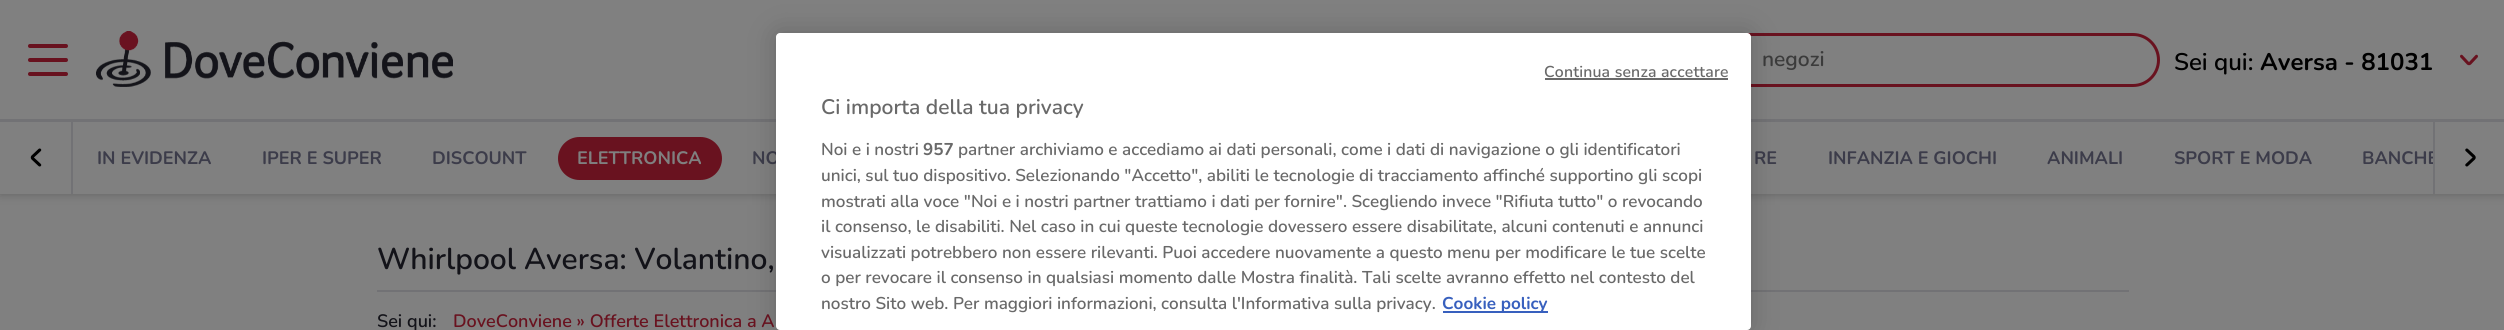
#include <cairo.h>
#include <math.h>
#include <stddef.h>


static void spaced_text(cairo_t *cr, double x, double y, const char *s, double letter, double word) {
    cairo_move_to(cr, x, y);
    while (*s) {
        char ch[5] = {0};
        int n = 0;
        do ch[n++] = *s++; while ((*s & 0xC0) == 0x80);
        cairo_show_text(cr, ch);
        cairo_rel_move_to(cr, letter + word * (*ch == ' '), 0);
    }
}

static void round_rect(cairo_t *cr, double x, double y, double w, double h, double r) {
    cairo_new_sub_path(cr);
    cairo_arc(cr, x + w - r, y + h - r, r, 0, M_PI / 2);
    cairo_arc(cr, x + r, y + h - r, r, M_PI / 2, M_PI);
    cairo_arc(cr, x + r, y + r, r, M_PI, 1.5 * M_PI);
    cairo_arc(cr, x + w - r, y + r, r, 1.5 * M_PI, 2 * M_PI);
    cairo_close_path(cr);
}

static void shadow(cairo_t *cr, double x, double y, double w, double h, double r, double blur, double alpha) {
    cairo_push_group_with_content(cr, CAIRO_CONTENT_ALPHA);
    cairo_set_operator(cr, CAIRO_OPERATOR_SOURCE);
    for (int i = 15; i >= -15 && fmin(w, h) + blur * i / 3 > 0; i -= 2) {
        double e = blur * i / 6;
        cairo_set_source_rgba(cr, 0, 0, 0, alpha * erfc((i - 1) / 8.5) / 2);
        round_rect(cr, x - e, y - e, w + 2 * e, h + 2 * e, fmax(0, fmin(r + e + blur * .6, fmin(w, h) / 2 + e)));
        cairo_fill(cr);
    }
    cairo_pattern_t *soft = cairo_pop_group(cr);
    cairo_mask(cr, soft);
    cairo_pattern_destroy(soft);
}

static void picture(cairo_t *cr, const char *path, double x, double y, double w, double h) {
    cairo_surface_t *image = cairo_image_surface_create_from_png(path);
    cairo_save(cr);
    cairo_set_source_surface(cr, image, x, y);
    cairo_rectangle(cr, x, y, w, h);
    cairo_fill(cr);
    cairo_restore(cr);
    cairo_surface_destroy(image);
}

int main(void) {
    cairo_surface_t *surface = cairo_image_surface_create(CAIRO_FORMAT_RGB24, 2504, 330);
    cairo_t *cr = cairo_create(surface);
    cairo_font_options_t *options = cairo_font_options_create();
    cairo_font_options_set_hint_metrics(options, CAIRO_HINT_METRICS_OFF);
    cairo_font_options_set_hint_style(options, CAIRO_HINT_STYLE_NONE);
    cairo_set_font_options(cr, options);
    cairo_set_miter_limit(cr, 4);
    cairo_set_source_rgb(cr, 0.502, 0.502, 0.502);
    cairo_paint(cr);
    cairo_set_source_rgb(cr, 0, 0, 0);
    shadow(cr, 0, 2, 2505, 193, 0, 4.5, 0.2);
    cairo_set_source_rgb(cr, 0.502, 0.502, 0.502);
    cairo_rectangle(cr, 0, 0, 2504, 194);
    cairo_fill(cr);
    picture(cr, "img1.png", 28, 44, 40, 32);
    picture(cr, "img2.png", 96, 31, 357, 56);
    round_rect(cr, 1552.5, 34.5, 606, 51, 25.5);
    cairo_set_source_rgb(cr, 0.412, 0.071, 0.122);
    cairo_set_line_width(cr, 3);
    cairo_stroke(cr);
    cairo_select_font_face(cr, "Nunito SemiBold", CAIRO_FONT_SLANT_NORMAL, CAIRO_FONT_WEIGHT_NORMAL);
    cairo_set_font_size(cr, 21);
    cairo_set_source_rgb(cr, 0.231, 0.231, 0.231);
    cairo_move_to(cr, 1762, 66);
    cairo_show_text(cr, "negozi");
    cairo_set_font_size(cr, 24);
    cairo_set_source_rgb(cr, 0, 0, 0);
    cairo_move_to(cr, 2174, 70);
    cairo_show_text(cr, "Sei qui:");
    cairo_select_font_face(cr, "Nunito", CAIRO_FONT_SLANT_NORMAL, CAIRO_FONT_WEIGHT_BOLD);
    cairo_move_to(cr, 2260, 70);
    cairo_show_text(cr, "Aversa - 81031");
    picture(cr, "img3.png", 2460, 54, 18, 12);
    cairo_set_source_rgb(cr, 0.447, 0.447, 0.459);
    cairo_rectangle(cr, 0, 119, 2504, 3);
    cairo_fill(cr);
    cairo_rectangle(cr, 71, 122, 2, 72);
    cairo_fill(cr);
    picture(cr, "img4.png", 30, 148, 12, 19);
    cairo_set_font_size(cr, 18);
    cairo_set_source_rgb(cr, 0.235, 0.235, 0.29);
    cairo_move_to(cr, 97, 164);
    cairo_show_text(cr, "IN EVIDENZA");
    cairo_move_to(cr, 262, 164);
    cairo_show_text(cr, "IPER E SUPER");
    cairo_move_to(cr, 432, 164);
    cairo_show_text(cr, "DISCOUNT");
    cairo_set_source_rgb(cr, 0.412, 0.071, 0.122);
    round_rect(cr, 558, 137, 164, 43, 21.5);
    cairo_fill(cr);
    cairo_set_source_rgb(cr, 0.502, 0.502, 0.502);
    cairo_move_to(cr, 577, 164);
    cairo_show_text(cr, "ELETTRONICA");
    cairo_set_source_rgb(cr, 0.235, 0.235, 0.29);
    cairo_move_to(cr, 752, 164);
    cairo_show_text(cr, "NO");
    cairo_move_to(cr, 1754, 164);
    cairo_show_text(cr, "RE");
    cairo_move_to(cr, 1828, 164);
    cairo_show_text(cr, "INFANZIA E GIOCHI");
    cairo_move_to(cr, 2047, 164);
    cairo_show_text(cr, "ANIMALI");
    cairo_move_to(cr, 2174, 164);
    cairo_show_text(cr, "SPORT E MODA");
    cairo_save(cr);
    cairo_rectangle(cr, 72, 134, 2361, 49);
    cairo_clip(cr);
    cairo_move_to(cr, 2362, 164);
    cairo_show_text(cr, "BANCHE");
    cairo_restore(cr);
    cairo_set_source_rgb(cr, 0.447, 0.447, 0.459);
    cairo_rectangle(cr, 2433, 122, 2, 72);
    cairo_fill(cr);
    picture(cr, "img5.png", 2465, 148, 11, 19);
    cairo_rectangle(cr, 377, 290, 1752, 2);
    cairo_fill(cr);
    cairo_select_font_face(cr, "Nunito SemiBold", CAIRO_FONT_SLANT_NORMAL, CAIRO_FONT_WEIGHT_NORMAL);
    cairo_set_font_size(cr, 30);
    cairo_set_source_rgb(cr, 0.078, 0.078, 0.098);
    cairo_move_to(cr, 377, 269);
    cairo_show_text(cr, "Whirlpool Aversa: Volantino,");
    cairo_set_font_size(cr, 18);
    cairo_move_to(cr, 377, 327);
    cairo_show_text(cr, "Sei qui:");
    cairo_set_source_rgb(cr, 0.412, 0.071, 0.122);
    cairo_move_to(cr, 453, 327);
    cairo_show_text(cr, "DoveConviene » Offerte Elettronica a A");
    cairo_set_source_rgb(cr, 0, 0, 0);
    shadow(cr, 776, 33, 975, 297, 4, 13.5, 0.2);
    cairo_set_source_rgb(cr, 1, 1, 1);
    round_rect(cr, 776, 33, 975, 297, 4);
    cairo_fill(cr);
    cairo_set_font_size(cr, 15.75);
    cairo_set_source_rgb(cr, 0.412, 0.412, 0.412);
    spaced_text(cr, 1544, 77, "Continua senza accettare", 0.2, 0);
    cairo_rectangle(cr, 1545, 78, 183, 2);
    cairo_fill(cr);
    cairo_set_font_size(cr, 21);
    cairo_move_to(cr, 821, 114);
    cairo_show_text(cr, "Ci importa della tua privacy");
    cairo_set_font_size(cr, 17.07);
    cairo_move_to(cr, 821, 155);
    cairo_show_text(cr, "Noi e i nostri");
    cairo_select_font_face(cr, "Nunito", CAIRO_FONT_SLANT_NORMAL, CAIRO_FONT_WEIGHT_BOLD);
    cairo_move_to(cr, 923, 155);
    cairo_show_text(cr, "957");
    cairo_select_font_face(cr, "Nunito SemiBold", CAIRO_FONT_SLANT_NORMAL, CAIRO_FONT_WEIGHT_NORMAL);
    cairo_move_to(cr, 958, 155);
    cairo_show_text(cr, "partner archiviamo e accediamo ai dati personali, come i dati di navigazione o gli identificatori");
    cairo_move_to(cr, 821, 181);
    cairo_show_text(cr, "unici, sul tuo dispositivo. Selezionando \"Accetto\", abiliti le tecnologie di tracciamento affinché supportino gli scopi");
    cairo_move_to(cr, 821, 207);
    cairo_show_text(cr, "mostrati alla voce \"Noi e i nostri partner trattiamo i dati per fornire\". Scegliendo invece \"Rifiuta tutto\" o revocando");
    cairo_move_to(cr, 821, 232);
    cairo_show_text(cr, "il consenso, le disabiliti. Nel caso in cui queste tecnologie dovessero essere disabilitate, alcuni contenuti e annunci");
    cairo_move_to(cr, 821, 258);
    cairo_show_text(cr, "visualizzati potrebbero non essere rilevanti. Puoi accedere nuovamente a questo menu per modificare le tue scelte");
    cairo_move_to(cr, 821, 283);
    cairo_show_text(cr, "o per revocare il consenso in qualsiasi momento dalle Mostra finalità. Tali scelte avranno effetto nel contesto del");
    cairo_move_to(cr, 821, 309);
    cairo_show_text(cr, "nostro Sito web. Per maggiori informazioni, consulta l'Informativa sulla privacy.");
    cairo_set_source_rgb(cr, 0.22, 0.376, 0.745);
    cairo_rectangle(cr, 1443, 311, 105, 2);
    cairo_fill(cr);
    cairo_select_font_face(cr, "Nunito", CAIRO_FONT_SLANT_NORMAL, CAIRO_FONT_WEIGHT_BOLD);
    cairo_move_to(cr, 1442, 309);
    cairo_show_text(cr, "Cookie policy");
    cairo_surface_write_to_png(surface, "page.png");
    cairo_font_options_destroy(options);
    cairo_destroy(cr);
    cairo_surface_destroy(surface);
    return 0;
}
